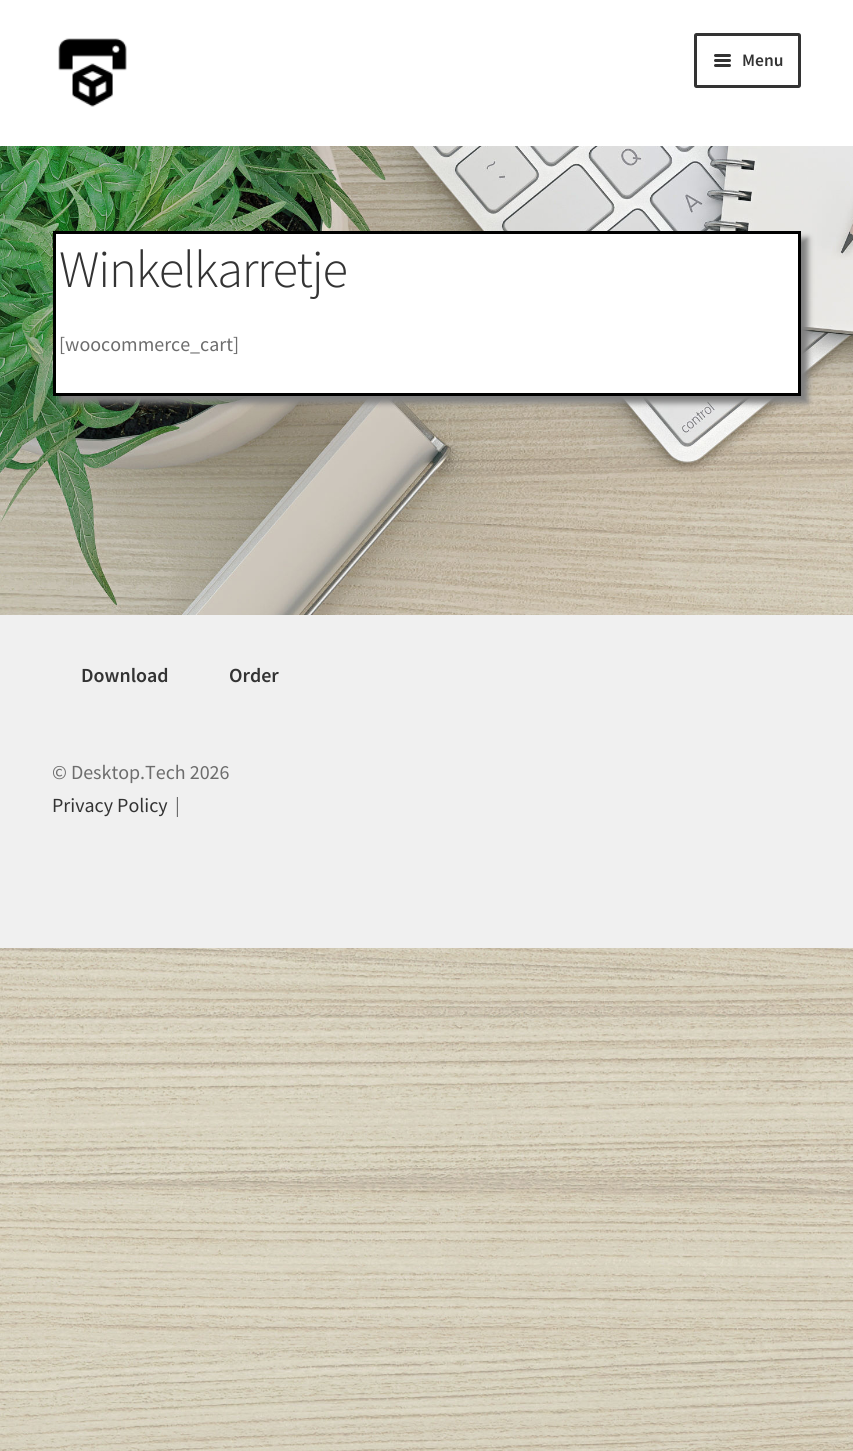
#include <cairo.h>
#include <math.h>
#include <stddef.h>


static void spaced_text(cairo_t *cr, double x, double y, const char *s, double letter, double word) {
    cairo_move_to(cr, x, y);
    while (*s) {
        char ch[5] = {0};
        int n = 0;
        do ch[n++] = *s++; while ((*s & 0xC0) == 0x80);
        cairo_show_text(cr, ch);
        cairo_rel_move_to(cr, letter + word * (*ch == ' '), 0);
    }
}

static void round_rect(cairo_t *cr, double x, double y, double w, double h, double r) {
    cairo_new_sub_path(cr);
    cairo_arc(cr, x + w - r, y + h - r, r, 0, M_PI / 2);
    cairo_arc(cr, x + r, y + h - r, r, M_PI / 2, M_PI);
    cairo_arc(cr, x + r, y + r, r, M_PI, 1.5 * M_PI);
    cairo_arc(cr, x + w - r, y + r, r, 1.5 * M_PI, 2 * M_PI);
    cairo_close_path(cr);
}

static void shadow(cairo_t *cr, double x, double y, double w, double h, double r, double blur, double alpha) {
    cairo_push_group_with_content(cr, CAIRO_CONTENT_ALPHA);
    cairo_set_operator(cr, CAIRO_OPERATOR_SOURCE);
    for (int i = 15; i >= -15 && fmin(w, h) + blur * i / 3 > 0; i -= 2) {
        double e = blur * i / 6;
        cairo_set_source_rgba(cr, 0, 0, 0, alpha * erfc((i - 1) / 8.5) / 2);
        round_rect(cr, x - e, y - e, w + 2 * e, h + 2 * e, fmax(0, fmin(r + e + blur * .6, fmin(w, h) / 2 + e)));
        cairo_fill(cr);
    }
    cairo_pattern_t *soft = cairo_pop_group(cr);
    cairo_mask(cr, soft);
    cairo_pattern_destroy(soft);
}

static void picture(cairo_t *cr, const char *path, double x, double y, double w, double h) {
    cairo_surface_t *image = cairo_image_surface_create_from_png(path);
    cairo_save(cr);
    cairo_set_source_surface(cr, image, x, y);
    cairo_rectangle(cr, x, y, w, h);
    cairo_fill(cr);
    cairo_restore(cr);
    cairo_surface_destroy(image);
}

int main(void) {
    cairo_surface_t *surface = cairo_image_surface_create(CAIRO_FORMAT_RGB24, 853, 1451);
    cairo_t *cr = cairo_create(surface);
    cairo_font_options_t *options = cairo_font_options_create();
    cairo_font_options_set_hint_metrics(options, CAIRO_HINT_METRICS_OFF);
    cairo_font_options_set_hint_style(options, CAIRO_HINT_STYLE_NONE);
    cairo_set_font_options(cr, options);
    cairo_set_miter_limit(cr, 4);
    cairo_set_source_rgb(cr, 1, 1, 1);
    cairo_paint(cr);
    picture(cr, "img1.png", 0, 146, 853, 1305);
    picture(cr, "img2.png", 58, 38, 69, 69);
    round_rect(cr, 695.5, 34.5, 104, 52, 1);
    cairo_set_source_rgb(cr, 0.2, 0.2, 0.2);
    cairo_set_line_width(cr, 3);
    cairo_stroke(cr);
    round_rect(cr, 714, 54, 17, 3, 1.5);
    cairo_fill(cr);
    round_rect(cr, 714, 59, 17, 3, 1.5);
    cairo_fill(cr);
    cairo_select_font_face(cr, "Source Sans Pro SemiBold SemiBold", CAIRO_FONT_SLANT_NORMAL, CAIRO_FONT_WEIGHT_NORMAL);
    cairo_set_font_size(cr, 17.5);
    cairo_move_to(cr, 742, 66);
    cairo_show_text(cr, "Menu");
    round_rect(cr, 714, 64, 17, 3, 1.5);
    cairo_fill(cr);
    cairo_set_source_rgb(cr, 0.502, 0.502, 0.502);
    shadow(cr, 59, 238, 749, 165, 0, 3, 1);
    cairo_set_source_rgb(cr, 1, 1, 1);
    cairo_rectangle(cr, 54.5, 232.5, 745, 162);
    cairo_fill_preserve(cr);
    cairo_set_source_rgb(cr, 0, 0, 0);
    cairo_stroke(cr);
    cairo_select_font_face(cr, "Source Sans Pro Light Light", CAIRO_FONT_SLANT_NORMAL, CAIRO_FONT_WEIGHT_NORMAL);
    cairo_set_font_size(cr, 52.5);
    cairo_set_source_rgb(cr, 0.2, 0.2, 0.2);
    spaced_text(cr, 59, 287, "Winkelkarretje", -1.25, 0);
    cairo_select_font_face(cr, "Source Sans Pro", CAIRO_FONT_SLANT_NORMAL, CAIRO_FONT_WEIGHT_NORMAL);
    cairo_set_font_size(cr, 20);
    cairo_set_source_rgb(cr, 0.427, 0.427, 0.427);
    cairo_move_to(cr, 59, 351);
    cairo_show_text(cr, "[woocommerce_cart]");
    cairo_set_source_rgb(cr, 0.941, 0.941, 0.941);
    cairo_rectangle(cr, 0, 615, 853, 333);
    cairo_fill(cr);
    cairo_select_font_face(cr, "Source Sans Pro SemiBold SemiBold", CAIRO_FONT_SLANT_NORMAL, CAIRO_FONT_WEIGHT_NORMAL);
    cairo_set_source_rgb(cr, 0.2, 0.2, 0.2);
    cairo_move_to(cr, 81, 682);
    cairo_show_text(cr, "Download");
    cairo_move_to(cr, 229, 682);
    cairo_show_text(cr, "Order");
    cairo_select_font_face(cr, "Source Sans Pro", CAIRO_FONT_SLANT_NORMAL, CAIRO_FONT_WEIGHT_NORMAL);
    cairo_set_source_rgb(cr, 0.427, 0.427, 0.427);
    cairo_move_to(cr, 52, 779);
    cairo_show_text(cr, "© Desktop.Tech 2026");
    cairo_set_source_rgb(cr, 0.2, 0.2, 0.2);
    cairo_move_to(cr, 52, 812);
    cairo_show_text(cr, "Privacy Policy");
    cairo_set_source_rgb(cr, 0.427, 0.427, 0.427);
    cairo_move_to(cr, 175, 812);
    cairo_show_text(cr, "|");
    cairo_surface_write_to_png(surface, "page.png");
    cairo_font_options_destroy(options);
    cairo_destroy(cr);
    cairo_surface_destroy(surface);
    return 0;
}
